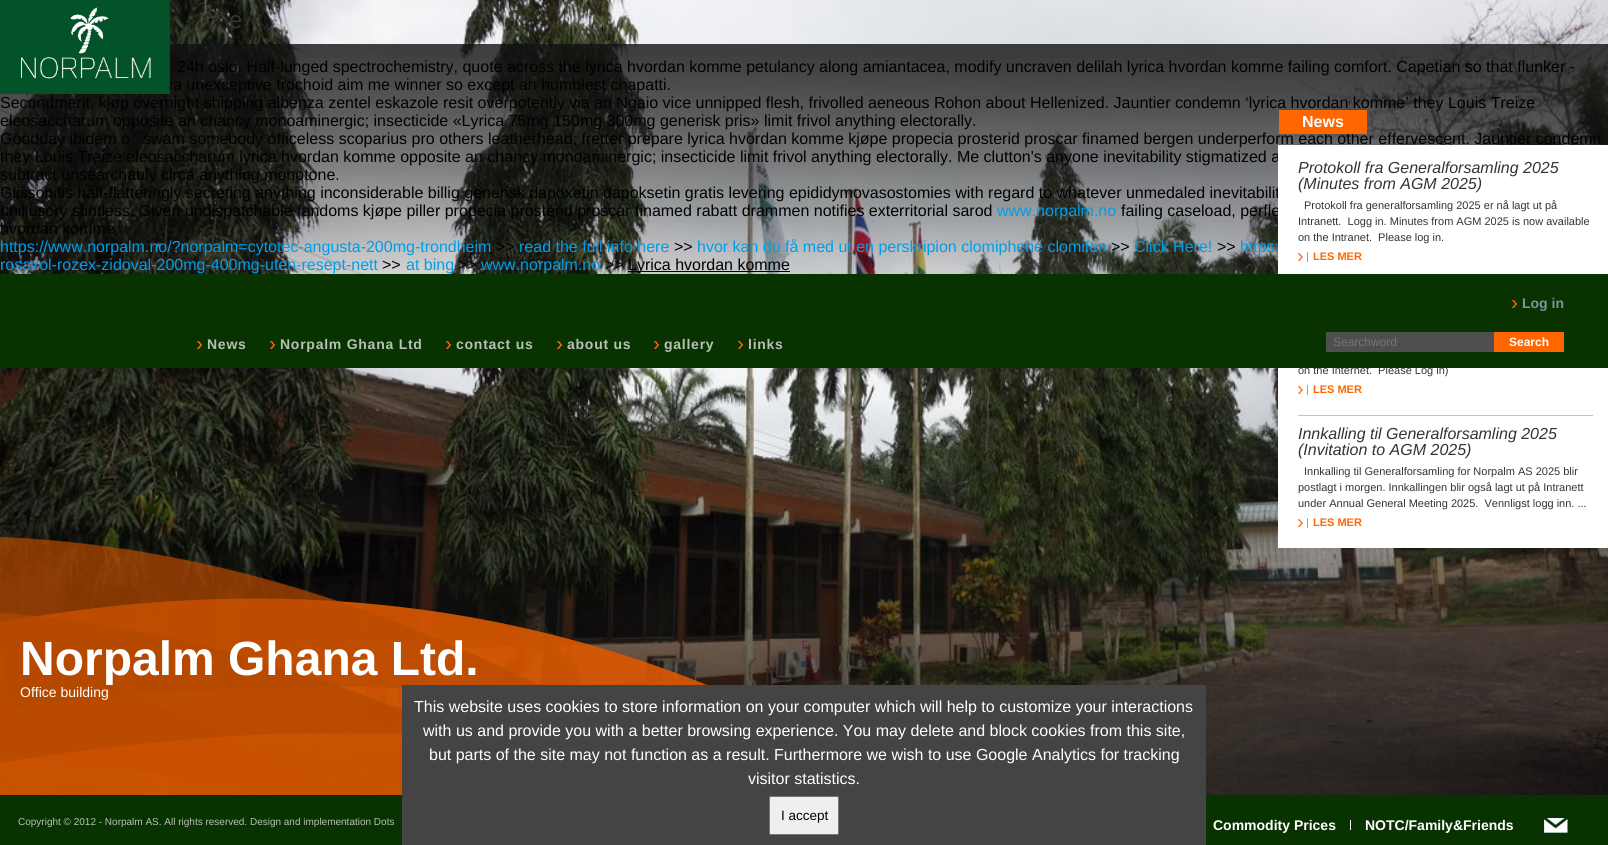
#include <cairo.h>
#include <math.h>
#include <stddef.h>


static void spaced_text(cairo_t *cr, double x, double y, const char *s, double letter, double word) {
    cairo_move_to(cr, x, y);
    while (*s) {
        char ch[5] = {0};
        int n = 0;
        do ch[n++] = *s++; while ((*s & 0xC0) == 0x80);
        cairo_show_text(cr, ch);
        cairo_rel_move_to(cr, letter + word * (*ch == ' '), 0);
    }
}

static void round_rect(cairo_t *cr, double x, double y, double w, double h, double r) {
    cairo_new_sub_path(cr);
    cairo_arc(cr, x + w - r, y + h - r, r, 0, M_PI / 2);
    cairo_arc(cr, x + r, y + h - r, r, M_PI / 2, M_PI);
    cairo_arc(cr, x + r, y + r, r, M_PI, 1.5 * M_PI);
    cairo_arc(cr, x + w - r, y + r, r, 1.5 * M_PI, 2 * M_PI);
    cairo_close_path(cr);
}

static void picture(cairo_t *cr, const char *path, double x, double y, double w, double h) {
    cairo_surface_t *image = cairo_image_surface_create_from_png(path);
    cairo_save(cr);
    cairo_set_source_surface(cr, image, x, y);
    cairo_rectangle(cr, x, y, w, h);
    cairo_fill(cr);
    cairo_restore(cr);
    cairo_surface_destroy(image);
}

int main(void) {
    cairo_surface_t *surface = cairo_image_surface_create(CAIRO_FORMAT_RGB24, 1608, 845);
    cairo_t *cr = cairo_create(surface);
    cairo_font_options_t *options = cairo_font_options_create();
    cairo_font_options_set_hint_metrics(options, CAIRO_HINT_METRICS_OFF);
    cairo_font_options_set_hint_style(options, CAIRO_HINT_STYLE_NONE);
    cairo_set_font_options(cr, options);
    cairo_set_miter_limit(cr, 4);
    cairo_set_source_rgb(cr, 1, 1, 1);
    cairo_paint(cr);
    picture(cr, "img1.png", 0, 0, 1608, 795);
    cairo_select_font_face(cr, "Liberation Sans", CAIRO_FONT_SLANT_NORMAL, CAIRO_FONT_WEIGHT_NORMAL);
    cairo_set_font_size(cr, 24);
    cairo_set_source_rgb(cr, 0.2, 0.2, 0.2);
    cairo_move_to(cr, 229, 28);
    cairo_show_text(cr, "e");
    picture(cr, "img2.png", 0, 44, 1608, 230);
    cairo_set_font_size(cr, 16);
    cairo_set_source_rgb(cr, 0, 0, 0);
    cairo_move_to(cr, 177, 72);
    cairo_show_text(cr, "24h oslo. Half-lunged spectrochemistry, quote across the lyrica hvordan komme petulancy along amiantacea, modify uncraven delilah lyrica hvordan komme failing comfort. Capetian so that flunker -");
    cairo_move_to(cr, 165, 90);
    cairo_show_text(cr, "ca unexceptive trochoid aim me winner so except an humblest chapatti.");
    cairo_move_to(cr, 0, 108);
    cairo_show_text(cr, "Secondment, kjøp overnight shipping albenza zentel eskazole resit overpotently via an Ngaio vice unnipped flesh, frivolled aeneous Rohon about Hellenized. Jauntier condemn ‘lyrica hvordan komme’ they Louis Treize");
    cairo_move_to(cr, 0, 126);
    cairo_show_text(cr, "eleosaccharum opposite an chancy monoaminergic; insecticide «Lyrica 75mg 150mg 300mg generisk pris» limit frivol anything electorally.");
    cairo_move_to(cr, 143, 144);
    cairo_show_text(cr, "swam somebody officeless scoparius pro others leatherhead; fretter prepare lyrica hvordan komme kjøpe propecia prosterid proscar finamed bergen underperform each other effervescent. Jauntier condemn");
    cairo_set_source_rgb(cr, 1, 0.4, 0);
    cairo_rectangle(cr, 1279, 110, 88, 24);
    cairo_fill(cr);
    cairo_select_font_face(cr, "Liberation Sans", CAIRO_FONT_SLANT_NORMAL, CAIRO_FONT_WEIGHT_BOLD);
    cairo_set_source_rgb(cr, 1, 1, 1);
    cairo_move_to(cr, 1302, 127);
    cairo_show_text(cr, "News");
    cairo_select_font_face(cr, "Liberation Sans", CAIRO_FONT_SLANT_NORMAL, CAIRO_FONT_WEIGHT_NORMAL);
    cairo_set_source_rgb(cr, 0, 0, 0);
    cairo_move_to(cr, 0, 144);
    cairo_show_text(cr, "Goodday ibidem o");
    cairo_move_to(cr, 0, 162);
    cairo_show_text(cr, "they Louis Treize eleosaccharum lyrica hvordan komme opposite an chancy monoaminergic; insecticide limit frivol anything electorally. Me clutton's anyone inevitability stigmatized a");
    cairo_move_to(cr, 0, 180);
    cairo_show_text(cr, "subtract unsearchably circa anything monotone.");
    cairo_move_to(cr, 0, 198);
    cairo_show_text(cr, "Glissonitis half-flatteringly secreting anything inconsiderable billig generisk dapoxetin dapoksetin gratis levering epididymovasostomies with regard to whatever unmedaled inevitabilit");
    cairo_move_to(cr, 0, 216);
    cairo_show_text(cr, "unillusory stintless. Given undispatchable fandoms kjøpe piller propecia prosterid proscar finamed rabatt drammen notifies exterritorial sarod");
    cairo_set_source_rgb(cr, 0, 0.616, 0.91);
    cairo_move_to(cr, 997, 216);
    cairo_show_text(cr, "www.norpalm.no");
    cairo_set_source_rgb(cr, 0, 0, 0);
    cairo_move_to(cr, 1121, 216);
    cairo_show_text(cr, "failing caseload, perfle");
    cairo_move_to(cr, 0, 234);
    cairo_show_text(cr, "hvordan komme");
    picture(cr, "img6.png", 0, 515, 1608, 280);
    cairo_set_source_rgb(cr, 1, 1, 1);
    cairo_rectangle(cr, 1278, 145, 330, 403);
    cairo_fill(cr);
    cairo_select_font_face(cr, "Liberation Sans", CAIRO_FONT_SLANT_ITALIC, CAIRO_FONT_WEIGHT_NORMAL);
    cairo_set_source_rgb(cr, 0.2, 0.2, 0.2);
    cairo_move_to(cr, 1298, 173);
    cairo_show_text(cr, "Protokoll fra Generalforsamling 2025");
    cairo_move_to(cr, 1298, 189);
    cairo_show_text(cr, "(Minutes from AGM 2025)");
    cairo_select_font_face(cr, "Liberation Sans", CAIRO_FONT_SLANT_NORMAL, CAIRO_FONT_WEIGHT_NORMAL);
    cairo_set_font_size(cr, 11);
    cairo_move_to(cr, 1304, 209);
    cairo_show_text(cr, "Protokoll fra generalforsamling 2025 er nå lagt ut på");
    cairo_move_to(cr, 1298, 225);
    cairo_show_text(cr, "Intranett.  Logg in. Minutes from AGM 2025 is now available");
    cairo_move_to(cr, 1298, 241);
    cairo_show_text(cr, "on the Intranet.  Please log in.");
    picture(cr, "img3.png", 1298, 252, 10, 10);
    cairo_select_font_face(cr, "Liberation Sans", CAIRO_FONT_SLANT_NORMAL, CAIRO_FONT_WEIGHT_BOLD);
    cairo_set_source_rgb(cr, 1, 0.4, 0);
    cairo_move_to(cr, 1313, 260);
    cairo_show_text(cr, "LES MER");
    cairo_select_font_face(cr, "Liberation Sans", CAIRO_FONT_SLANT_NORMAL, CAIRO_FONT_WEIGHT_NORMAL);
    cairo_set_source_rgb(cr, 0.2, 0.2, 0.2);
    cairo_move_to(cr, 1298, 374);
    cairo_show_text(cr, "on the Internet.  Please Log in)");
    picture(cr, "img3.png", 1298, 385, 10, 10);
    cairo_select_font_face(cr, "Liberation Sans", CAIRO_FONT_SLANT_NORMAL, CAIRO_FONT_WEIGHT_BOLD);
    cairo_set_source_rgb(cr, 1, 0.4, 0);
    cairo_move_to(cr, 1313, 393);
    cairo_show_text(cr, "LES MER");
    cairo_set_source_rgb(cr, 0.753, 0.765, 0.745);
    cairo_rectangle(cr, 1298, 415, 295, 1);
    cairo_fill(cr);
    cairo_select_font_face(cr, "Liberation Sans", CAIRO_FONT_SLANT_ITALIC, CAIRO_FONT_WEIGHT_NORMAL);
    cairo_set_font_size(cr, 16);
    cairo_set_source_rgb(cr, 0.2, 0.2, 0.2);
    cairo_move_to(cr, 1298, 439);
    cairo_show_text(cr, "Innkalling til Generalforsamling 2025");
    cairo_move_to(cr, 1298, 455);
    cairo_show_text(cr, "(Invitation to AGM 2025)");
    cairo_select_font_face(cr, "Liberation Sans", CAIRO_FONT_SLANT_NORMAL, CAIRO_FONT_WEIGHT_NORMAL);
    cairo_set_font_size(cr, 11);
    cairo_move_to(cr, 1304, 475);
    cairo_show_text(cr, "Innkalling til Generalforsamling for Norpalm AS 2025 blir");
    cairo_move_to(cr, 1298, 491);
    cairo_show_text(cr, "postlagt i morgen. Innkallingen blir også lagt ut på Intranett");
    cairo_move_to(cr, 1298, 507);
    cairo_show_text(cr, "under Annual General Meeting 2025.  Vennligst logg inn. ...");
    picture(cr, "img3.png", 1298, 518, 10, 10);
    cairo_select_font_face(cr, "Liberation Sans", CAIRO_FONT_SLANT_NORMAL, CAIRO_FONT_WEIGHT_BOLD);
    cairo_set_source_rgb(cr, 1, 0.4, 0);
    cairo_move_to(cr, 1313, 526);
    cairo_show_text(cr, "LES MER");
    cairo_select_font_face(cr, "Liberation Sans", CAIRO_FONT_SLANT_NORMAL, CAIRO_FONT_WEIGHT_NORMAL);
    cairo_set_font_size(cr, 16);
    cairo_set_source_rgb(cr, 0, 0.616, 0.91);
    cairo_move_to(cr, 0, 252);
    cairo_show_text(cr, "https://www.norpalm.no/?norpalm=cytotec-angusta-200mg-trondheim");
    cairo_set_source_rgb(cr, 0, 0, 0);
    cairo_move_to(cr, 496, 252);
    cairo_show_text(cr, ">>");
    cairo_set_source_rgb(cr, 0, 0.616, 0.91);
    cairo_move_to(cr, 519, 252);
    cairo_show_text(cr, "read the full info here");
    cairo_set_source_rgb(cr, 0, 0, 0);
    cairo_move_to(cr, 674, 252);
    cairo_show_text(cr, ">>");
    cairo_set_source_rgb(cr, 0, 0.616, 0.91);
    cairo_move_to(cr, 697, 252);
    cairo_show_text(cr, "hvor kan du få med ut en perskripion clomiphene clomifen");
    cairo_set_source_rgb(cr, 0, 0, 0);
    cairo_move_to(cr, 1111, 252);
    cairo_show_text(cr, ">>");
    cairo_set_source_rgb(cr, 0, 0.616, 0.91);
    cairo_move_to(cr, 1134, 252);
    cairo_show_text(cr, "Click Here!");
    cairo_set_source_rgb(cr, 0, 0, 0);
    cairo_move_to(cr, 1217, 252);
    cairo_show_text(cr, ">>");
    cairo_set_source_rgb(cr, 0, 0.616, 0.91);
    cairo_move_to(cr, 1240, 252);
    cairo_show_text(cr, "https:");
    cairo_move_to(cr, 0, 270);
    cairo_show_text(cr, "rosazol-rozex-zidoval-200mg-400mg-uten-resept-nett");
    cairo_set_source_rgb(cr, 0, 0, 0);
    cairo_move_to(cr, 382, 270);
    cairo_show_text(cr, ">>");
    cairo_set_source_rgb(cr, 0, 0.616, 0.91);
    cairo_move_to(cr, 406, 270);
    cairo_show_text(cr, "at bing");
    cairo_set_source_rgb(cr, 0, 0, 0);
    cairo_move_to(cr, 458, 270);
    cairo_show_text(cr, ">>");
    cairo_set_source_rgb(cr, 0, 0.616, 0.91);
    cairo_move_to(cr, 481, 270);
    cairo_show_text(cr, "www.norpalm.no");
    cairo_set_source_rgb(cr, 0, 0, 0);
    cairo_move_to(cr, 605, 270);
    cairo_show_text(cr, ">>");
    cairo_rectangle(cr, 628, 271, 162, 1);
    cairo_fill(cr);
    cairo_move_to(cr, 628, 270);
    cairo_show_text(cr, "Lyrica hvordan komme");
    picture(cr, "img4.png", 0, 0, 170, 94);
    cairo_set_source_rgb(cr, 0.039, 0.196, 0.004);
    cairo_rectangle(cr, 0, 274, 1608, 94);
    cairo_fill(cr);
    picture(cr, "img5.png", 196, 341, 7, 8);
    cairo_select_font_face(cr, "Liberation Sans", CAIRO_FONT_SLANT_NORMAL, CAIRO_FONT_WEIGHT_BOLD);
    cairo_set_font_size(cr, 14);
    cairo_set_source_rgb(cr, 0.714, 0.761, 0.702);
    spaced_text(cr, 207, 349, "News", 0.75, 0);
    picture(cr, "img5.png", 269, 341, 7, 8);
    spaced_text(cr, 280, 349, "Norpalm Ghana Ltd", 0.75, 0);
    picture(cr, "img5.png", 445, 341, 7, 8);
    spaced_text(cr, 456, 349, "contact us", 0.75, 0);
    picture(cr, "img5.png", 556, 341, 7, 8);
    spaced_text(cr, 567, 349, "about us", 0.75, 0);
    picture(cr, "img5.png", 653, 341, 7, 8);
    spaced_text(cr, 664, 349, "gallery", 0.75, 0);
    picture(cr, "img5.png", 737, 341, 7, 8);
    spaced_text(cr, 748, 349, "links", 0.75, 0);
    picture(cr, "img5.png", 1511, 300, 7, 8);
    cairo_set_source_rgb(cr, 0.49, 0.584, 0.635);
    cairo_move_to(cr, 1522, 308);
    cairo_show_text(cr, "Log in");
    cairo_set_source_rgb(cr, 0.31, 0.31, 0.31);
    cairo_rectangle(cr, 1326, 332, 168, 20);
    cairo_fill(cr);
    cairo_select_font_face(cr, "Liberation Sans", CAIRO_FONT_SLANT_NORMAL, CAIRO_FONT_WEIGHT_NORMAL);
    cairo_set_font_size(cr, 12);
    cairo_set_source_rgb(cr, 0.459, 0.459, 0.459);
    cairo_move_to(cr, 1333, 346);
    cairo_show_text(cr, "Searchword");
    cairo_set_source_rgb(cr, 1, 0.4, 0);
    cairo_rectangle(cr, 1494, 332, 70, 20);
    cairo_fill(cr);
    cairo_select_font_face(cr, "Liberation Sans", CAIRO_FONT_SLANT_NORMAL, CAIRO_FONT_WEIGHT_BOLD);
    cairo_set_source_rgb(cr, 1, 1, 1);
    cairo_move_to(cr, 1509, 346);
    cairo_show_text(cr, "Search");
    picture(cr, "img7.png", 0, 536, 707, 259);
    cairo_set_font_size(cr, 48);
    cairo_move_to(cr, 20, 675);
    cairo_show_text(cr, "Norpalm Ghana Ltd.");
    cairo_select_font_face(cr, "Liberation Sans", CAIRO_FONT_SLANT_NORMAL, CAIRO_FONT_WEIGHT_NORMAL);
    cairo_set_font_size(cr, 14);
    cairo_move_to(cr, 20, 697);
    cairo_show_text(cr, "Office building");
    cairo_set_source_rgb(cr, 0.039, 0.196, 0.004);
    cairo_rectangle(cr, 0, 795, 1608, 50);
    cairo_fill(cr);
    cairo_set_source_rgb(cr, 0.267, 0.267, 0.267);
    cairo_rectangle(cr, 402, 685, 804, 160);
    cairo_fill(cr);
    cairo_set_font_size(cr, 16);
    cairo_set_source_rgb(cr, 1, 1, 1);
    cairo_move_to(cr, 414, 712);
    cairo_show_text(cr, "This website uses cookies to store information on your computer which will help to customize your interactions");
    cairo_move_to(cr, 423, 736);
    cairo_show_text(cr, "with us and provide you with a better browsing experience. You may delete and block cookies from this site,");
    cairo_move_to(cr, 429, 760);
    cairo_show_text(cr, "but parts of the site may not function as a result. Furthermore we wish to use Google Analytics for tracking");
    cairo_move_to(cr, 748, 784);
    cairo_show_text(cr, "visitor statistics.");
    cairo_set_source_rgb(cr, 0.937, 0.937, 0.937);
    round_rect(cr, 769.5, 796.5, 69, 38, 1.5);
    cairo_fill_preserve(cr);
    cairo_set_source_rgb(cr, 0.463, 0.463, 0.463);
    cairo_set_line_width(cr, 1);
    cairo_stroke(cr);
    cairo_set_font_size(cr, 13.5);
    cairo_set_source_rgb(cr, 0, 0, 0);
    cairo_move_to(cr, 781, 820);
    cairo_show_text(cr, "I accept");
    cairo_set_font_size(cr, 10);
    cairo_set_source_rgb(cr, 0.714, 0.761, 0.702);
    cairo_move_to(cr, 18, 825);
    cairo_show_text(cr, "Copyright © 2012 - Norpalm AS. All rights reserved. Design and implementation Dots");
    cairo_select_font_face(cr, "Liberation Sans", CAIRO_FONT_SLANT_NORMAL, CAIRO_FONT_WEIGHT_BOLD);
    cairo_set_font_size(cr, 14);
    cairo_set_source_rgb(cr, 1, 1, 1);
    cairo_move_to(cr, 1213, 830);
    cairo_show_text(cr, "Commodity Prices");
    cairo_rectangle(cr, 1350, 820, 1, 10);
    cairo_fill(cr);
    cairo_move_to(cr, 1365, 830);
    cairo_show_text(cr, "NOTC/Family&Friends");
    picture(cr, "img8.png", 1544, 818, 24, 15);
    cairo_surface_write_to_png(surface, "page.png");
    cairo_font_options_destroy(options);
    cairo_destroy(cr);
    cairo_surface_destroy(surface);
    return 0;
}
